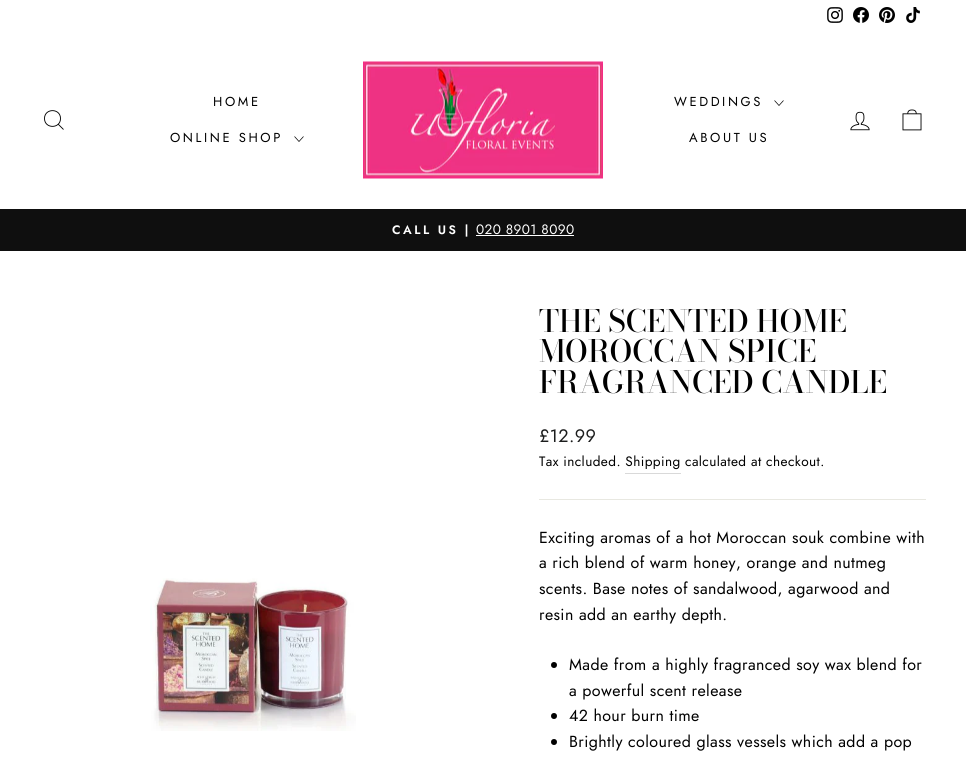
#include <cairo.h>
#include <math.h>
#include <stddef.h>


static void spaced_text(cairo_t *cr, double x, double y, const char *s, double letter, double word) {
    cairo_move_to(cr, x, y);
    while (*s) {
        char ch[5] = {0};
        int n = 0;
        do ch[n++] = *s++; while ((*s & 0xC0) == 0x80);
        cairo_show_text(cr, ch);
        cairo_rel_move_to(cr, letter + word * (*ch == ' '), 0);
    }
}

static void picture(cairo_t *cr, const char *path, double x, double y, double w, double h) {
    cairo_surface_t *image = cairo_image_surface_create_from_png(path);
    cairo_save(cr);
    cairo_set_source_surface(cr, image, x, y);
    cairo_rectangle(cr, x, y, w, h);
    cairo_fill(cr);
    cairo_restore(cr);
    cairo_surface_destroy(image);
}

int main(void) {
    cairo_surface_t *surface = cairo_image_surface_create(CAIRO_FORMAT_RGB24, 966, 760);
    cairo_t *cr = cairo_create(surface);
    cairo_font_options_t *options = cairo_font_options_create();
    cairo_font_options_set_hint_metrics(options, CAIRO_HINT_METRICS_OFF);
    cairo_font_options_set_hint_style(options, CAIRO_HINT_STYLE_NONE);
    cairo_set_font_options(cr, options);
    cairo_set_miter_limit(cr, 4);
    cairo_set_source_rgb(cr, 1, 1, 1);
    cairo_paint(cr);
    picture(cr, "img1.png", 827, 7, 16, 16);
    picture(cr, "img2.png", 853, 7, 16, 16);
    picture(cr, "img3.png", 879, 7, 16, 16);
    picture(cr, "img4.png", 906, 7, 14, 16);
    cairo_new_path(cr);
    cairo_move_to(cr, 60.5, 118.5);
    cairo_curve_to(cr, 60.5, 129, 44.5, 129, 44.5, 118.5);
    cairo_curve_to(cr, 44.5, 108, 60.5, 108, 60.5, 118.5);
    cairo_close_path(cr);
    cairo_move_to(cr, 63.5, 129.5);
    cairo_line_to(cr, 58.5, 124.5);
    cairo_set_source_rgb(cr, 0, 0, 0);
    cairo_set_line_width(cr, 0.9);
    cairo_stroke(cr);
    cairo_select_font_face(cr, "Jost", CAIRO_FONT_SLANT_NORMAL, CAIRO_FONT_WEIGHT_NORMAL);
    cairo_set_font_size(cr, 13);
    spaced_text(cr, 213, 106, "HOME", 2.6, 0);
    spaced_text(cr, 170, 142, "ONLINE SHOP", 2.6, 0);
    cairo_new_path(cr);
    cairo_move_to(cr, 294.5, 136.5);
    cairo_line_to(cr, 299, 141.5);
    cairo_line_to(cr, 303.5, 136.5);
    cairo_set_line_width(cr, 0.7);
    cairo_stroke(cr);
    picture(cr, "img5.png", 363, 61, 240, 118);
    spaced_text(cr, 674, 106, "WEDDINGS", 2.6, 0);
    cairo_new_path(cr);
    cairo_move_to(cr, 774.5, 100.5);
    cairo_line_to(cr, 779, 105.5);
    cairo_line_to(cr, 783.5, 100.5);
    cairo_stroke(cr);
    spaced_text(cr, 689, 142, "ABOUT US", 2.6, 0);
    picture(cr, "img6.png", 850, 111, 20, 20);
    picture(cr, "img7.png", 902, 109, 20, 22);
    cairo_set_source_rgb(cr, 0.059, 0.059, 0.059);
    cairo_rectangle(cr, 0, 209, 966, 42);
    cairo_fill(cr);
    cairo_select_font_face(cr, "Jost SemiBold", CAIRO_FONT_SLANT_NORMAL, CAIRO_FONT_WEIGHT_NORMAL);
    cairo_set_font_size(cr, 12.25);
    cairo_set_source_rgb(cr, 1, 1, 1);
    spaced_text(cr, 392, 234, "CALL US |", 2.5, 0);
    cairo_select_font_face(cr, "Jost", CAIRO_FONT_SLANT_NORMAL, CAIRO_FONT_WEIGHT_NORMAL);
    cairo_set_font_size(cr, 13.6);
    spaced_text(cr, 476, 234, "020 8901 8090", 0.4, 0);
    cairo_rectangle(cr, 476, 235, 98, 1);
    cairo_fill(cr);
    picture(cr, "img8.png", 150, 578, 206, 153);
    cairo_select_font_face(cr, "Bodoni Moda Medium", CAIRO_FONT_SLANT_NORMAL, CAIRO_FONT_WEIGHT_NORMAL);
    cairo_set_font_size(cr, 30.6);
    cairo_set_source_rgb(cr, 0, 0, 0);
    cairo_move_to(cr, 539, 332);
    cairo_show_text(cr, "THE SCENTED HOME");
    cairo_move_to(cr, 539, 362);
    cairo_show_text(cr, "MOROCCAN SPICE");
    cairo_move_to(cr, 539, 393);
    cairo_show_text(cr, "FRAGRANCED CANDLE");
    cairo_select_font_face(cr, "Jost", CAIRO_FONT_SLANT_NORMAL, CAIRO_FONT_WEIGHT_NORMAL);
    cairo_set_font_size(cr, 18);
    cairo_set_source_rgb(cr, 0.11, 0.114, 0.114);
    spaced_text(cr, 539, 442, "£12.99", 0.4, 0);
    cairo_set_font_size(cr, 13.6);
    cairo_set_source_rgb(cr, 0, 0, 0);
    spaced_text(cr, 539, 466, "Tax included. Shipping", 0.4, 0);
    spaced_text(cr, 685, 466, "calculated at checkout.", 0.4, 0);
    cairo_set_source_rgb(cr, 0.851, 0.851, 0.851);
    cairo_rectangle(cr, 625, 473, 56, 1);
    cairo_fill(cr);
    cairo_set_source_rgb(cr, 0.91, 0.91, 0.882);
    cairo_rectangle(cr, 539, 499, 387, 1);
    cairo_fill(cr);
    cairo_set_font_size(cr, 16);
    cairo_set_source_rgb(cr, 0, 0, 0);
    spaced_text(cr, 539, 543, "Exciting aromas of a hot Moroccan souk combine with", 0.4, 0);
    spaced_text(cr, 539, 568, "a rich blend of warm honey, orange and nutmeg", 0.4, 0);
    spaced_text(cr, 539, 594, "scents. Base notes of sandalwood, agarwood and", 0.4, 0);
    spaced_text(cr, 539, 620, "resin add an earthy depth.", 0.4, 0);
    cairo_new_path(cr);
    cairo_arc(cr, 554, 665, 3, 0, 2 * M_PI);
    cairo_fill(cr);
    spaced_text(cr, 569, 670, "Made from a highly fragranced soy wax blend for", 0.4, 0);
    spaced_text(cr, 569, 696, "a powerful scent release", 0.4, 0);
    cairo_new_path(cr);
    cairo_arc(cr, 554, 716, 3, 0, 2 * M_PI);
    cairo_fill(cr);
    spaced_text(cr, 569, 721, "42 hour burn time", 0.4, 0);
    cairo_new_path(cr);
    cairo_arc(cr, 554, 742, 3, 0, 2 * M_PI);
    cairo_fill(cr);
    spaced_text(cr, 569, 747, "Brightly coloured glass vessels which add a pop", 0.4, 0);
    cairo_surface_write_to_png(surface, "page.png");
    cairo_font_options_destroy(options);
    cairo_destroy(cr);
    cairo_surface_destroy(surface);
    return 0;
}
